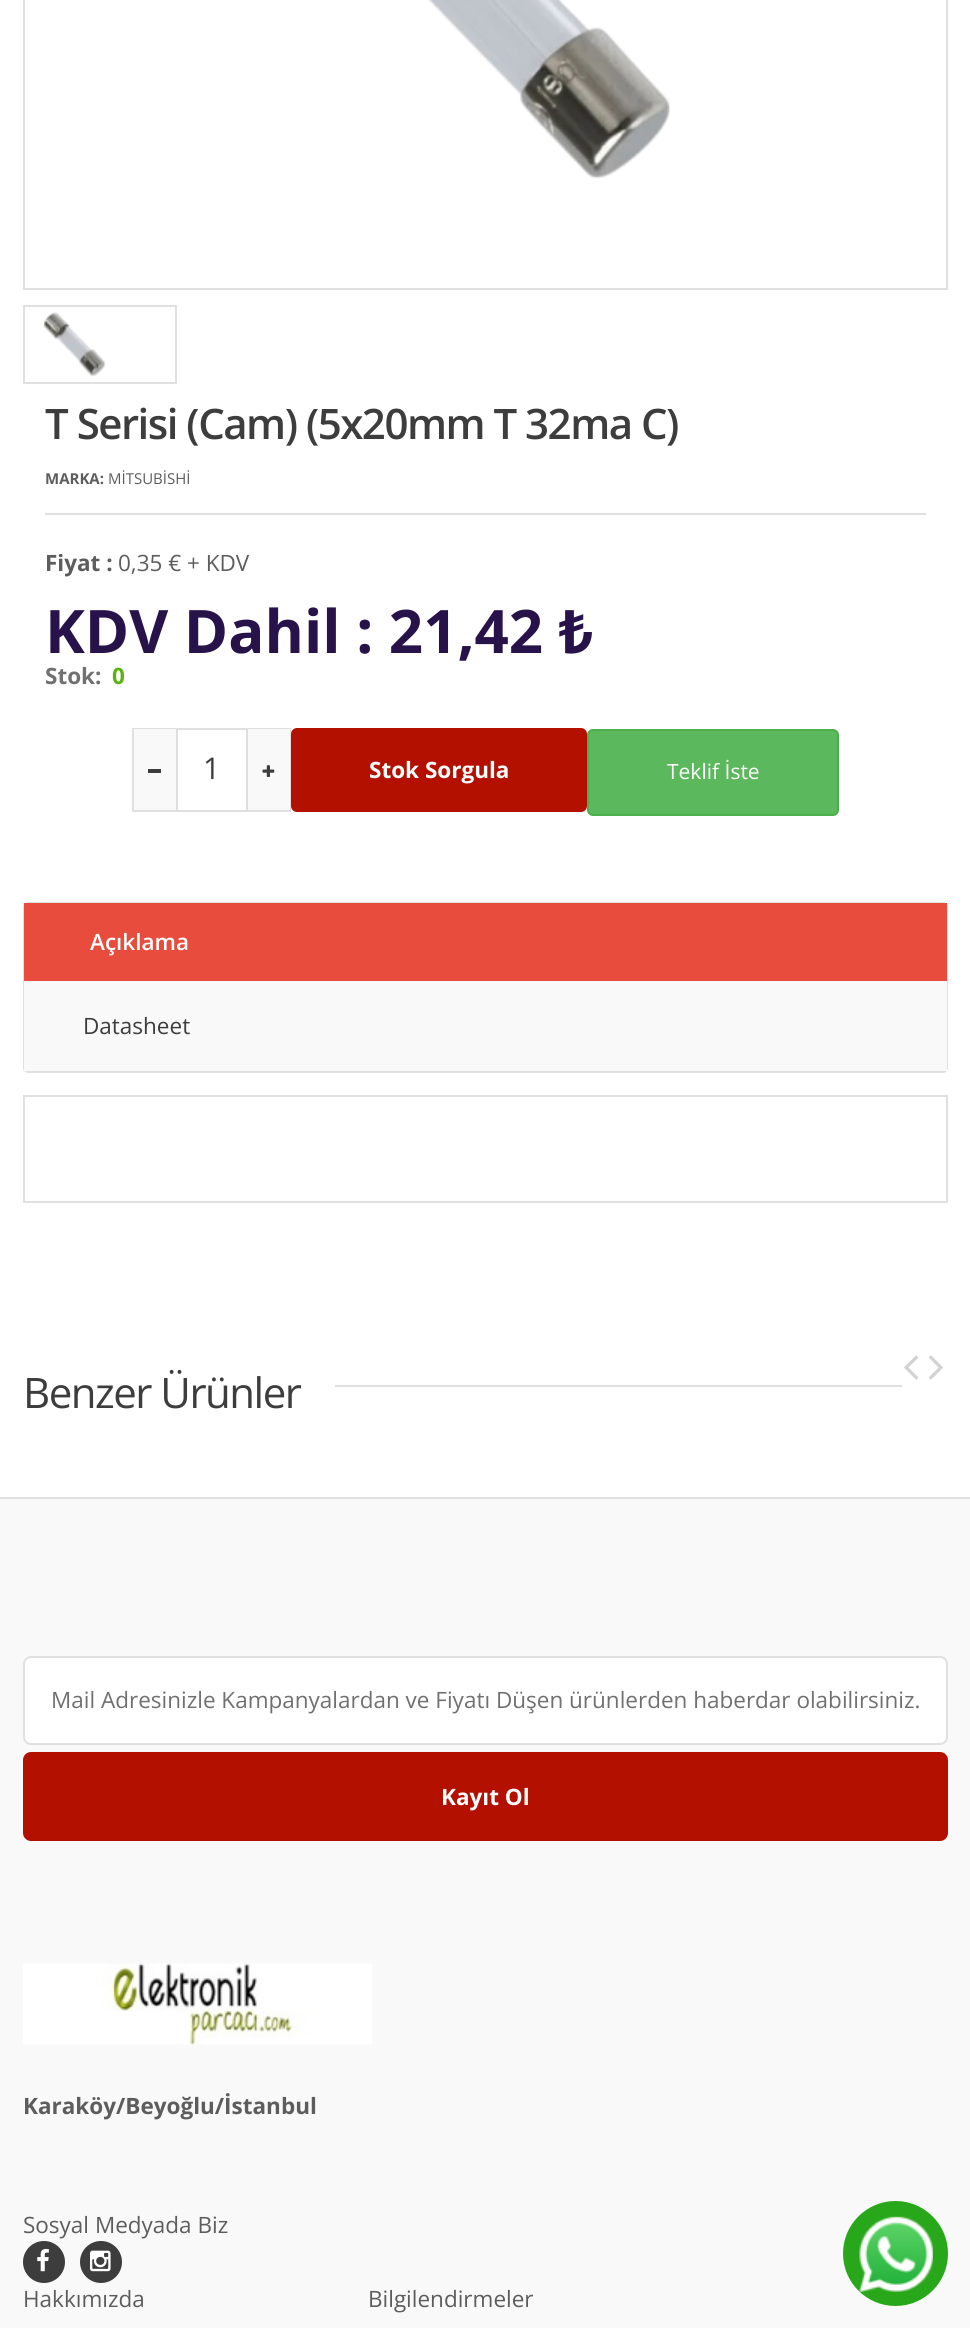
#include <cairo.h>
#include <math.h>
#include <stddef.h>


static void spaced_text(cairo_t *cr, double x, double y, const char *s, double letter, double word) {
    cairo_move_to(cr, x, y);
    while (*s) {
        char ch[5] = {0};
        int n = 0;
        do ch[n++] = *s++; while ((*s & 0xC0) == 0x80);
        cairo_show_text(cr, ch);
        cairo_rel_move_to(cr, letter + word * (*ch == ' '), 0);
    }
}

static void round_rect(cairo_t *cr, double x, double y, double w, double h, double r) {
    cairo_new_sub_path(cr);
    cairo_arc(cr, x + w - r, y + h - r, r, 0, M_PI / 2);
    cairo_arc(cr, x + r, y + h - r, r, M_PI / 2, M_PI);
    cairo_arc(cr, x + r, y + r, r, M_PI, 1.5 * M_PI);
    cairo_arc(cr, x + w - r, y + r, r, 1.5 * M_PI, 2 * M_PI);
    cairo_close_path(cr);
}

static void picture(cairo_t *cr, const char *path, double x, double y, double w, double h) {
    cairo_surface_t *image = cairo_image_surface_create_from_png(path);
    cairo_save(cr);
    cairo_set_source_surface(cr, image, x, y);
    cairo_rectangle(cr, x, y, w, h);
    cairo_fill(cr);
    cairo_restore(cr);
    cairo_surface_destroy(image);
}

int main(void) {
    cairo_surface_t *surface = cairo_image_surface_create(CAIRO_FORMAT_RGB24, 970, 2328);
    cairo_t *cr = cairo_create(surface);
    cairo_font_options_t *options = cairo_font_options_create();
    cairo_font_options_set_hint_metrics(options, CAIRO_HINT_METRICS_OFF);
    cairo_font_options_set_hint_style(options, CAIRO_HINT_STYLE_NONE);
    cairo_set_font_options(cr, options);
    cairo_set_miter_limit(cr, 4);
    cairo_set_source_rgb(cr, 1, 1, 1);
    cairo_paint(cr);
    cairo_rectangle(cr, 24, -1, 923, 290);
    cairo_set_source_rgb(cr, 0.878, 0.878, 0.878);
    cairo_stroke(cr);
    picture(cr, "img1.png", 428, 0, 243, 179);
    cairo_rectangle(cr, 24, 306, 152, 77);
    cairo_stroke(cr);
    picture(cr, "img2.png", 43, 312, 63, 65);
    cairo_select_font_face(cr, "Open Sans SemiBold", CAIRO_FONT_SLANT_NORMAL, CAIRO_FONT_WEIGHT_NORMAL);
    cairo_set_font_size(cr, 42);
    cairo_set_source_rgb(cr, 0.239, 0.239, 0.239);
    spaced_text(cr, 45, 439, "T Serisi (Cam) (5x20mm T 32ma C)", -1.5, 0);
    cairo_set_source_rgb(cr, 0.878, 0.878, 0.878);
    cairo_rectangle(cr, 45, 513, 881, 2);
    cairo_fill(cr);
    cairo_select_font_face(cr, "Open Sans", CAIRO_FONT_SLANT_NORMAL, CAIRO_FONT_WEIGHT_BOLD);
    cairo_set_font_size(cr, 15);
    cairo_set_source_rgb(cr, 0.365, 0.365, 0.365);
    cairo_move_to(cr, 45, 484);
    cairo_show_text(cr, "MARKA:");
    cairo_select_font_face(cr, "Open Sans", CAIRO_FONT_SLANT_NORMAL, CAIRO_FONT_WEIGHT_NORMAL);
    cairo_move_to(cr, 108, 484);
    cairo_show_text(cr, "MİTSUBİSHİ");
    cairo_select_font_face(cr, "Open Sans", CAIRO_FONT_SLANT_NORMAL, CAIRO_FONT_WEIGHT_BOLD);
    cairo_set_font_size(cr, 22.5);
    cairo_move_to(cr, 45, 571);
    cairo_show_text(cr, "Fiyat :");
    cairo_select_font_face(cr, "Open Sans", CAIRO_FONT_SLANT_NORMAL, CAIRO_FONT_WEIGHT_NORMAL);
    cairo_move_to(cr, 118, 571);
    cairo_show_text(cr, "0,35 € + KDV");
    cairo_select_font_face(cr, "Open Sans", CAIRO_FONT_SLANT_NORMAL, CAIRO_FONT_WEIGHT_BOLD);
    cairo_set_font_size(cr, 60);
    cairo_set_source_rgb(cr, 0.157, 0.071, 0.29);
    cairo_move_to(cr, 45, 653);
    cairo_show_text(cr, "KDV Dahil : 21,42");
    cairo_select_font_face(cr, "Noto Sans", CAIRO_FONT_SLANT_NORMAL, CAIRO_FONT_WEIGHT_BOLD);
    cairo_move_to(cr, 559, 653);
    cairo_show_text(cr, "₺");
    cairo_select_font_face(cr, "Open Sans", CAIRO_FONT_SLANT_NORMAL, CAIRO_FONT_WEIGHT_BOLD);
    cairo_set_font_size(cr, 22.5);
    cairo_set_source_rgb(cr, 0.439, 0.439, 0.439);
    cairo_move_to(cr, 45, 684);
    cairo_show_text(cr, "Stok:");
    cairo_set_source_rgb(cr, 0.349, 0.698, 0.063);
    cairo_move_to(cr, 112, 684);
    cairo_show_text(cr, "0");
    cairo_rectangle(cr, 133, 729, 157, 82);
    cairo_set_source_rgb(cr, 0.878, 0.878, 0.878);
    cairo_stroke(cr);
    cairo_set_source_rgb(cr, 0.976, 0.976, 0.976);
    cairo_rectangle(cr, 134, 729, 42, 81);
    cairo_fill(cr);
    cairo_set_source_rgb(cr, 0.878, 0.878, 0.878);
    cairo_rectangle(cr, 176, 729, 2, 81);
    cairo_fill(cr);
    cairo_set_source_rgb(cr, 0.239, 0.239, 0.239);
    cairo_rectangle(cr, 148, 769, 13, 4);
    cairo_fill(cr);
    cairo_select_font_face(cr, "Open Sans", CAIRO_FONT_SLANT_NORMAL, CAIRO_FONT_WEIGHT_NORMAL);
    cairo_set_font_size(cr, 30);
    cairo_move_to(cr, 203, 779);
    cairo_show_text(cr, "1");
    cairo_set_source_rgb(cr, 0.976, 0.976, 0.976);
    cairo_rectangle(cr, 248, 729, 42, 81);
    cairo_fill(cr);
    cairo_set_source_rgb(cr, 0.878, 0.878, 0.878);
    cairo_rectangle(cr, 246, 729, 2, 81);
    cairo_fill(cr);
    picture(cr, "img3.png", 262, 765, 13, 12);
    cairo_set_source_rgb(cr, 0.702, 0.063, 0);
    round_rect(cr, 291, 728, 296, 84, 6);
    cairo_fill(cr);
    cairo_select_font_face(cr, "Open Sans", CAIRO_FONT_SLANT_NORMAL, CAIRO_FONT_WEIGHT_BOLD);
    cairo_set_font_size(cr, 22.5);
    cairo_set_source_rgb(cr, 1, 1, 1);
    cairo_move_to(cr, 369, 778);
    cairo_show_text(cr, "Stok Sorgula");
    cairo_set_source_rgb(cr, 0.361, 0.722, 0.361);
    round_rect(cr, 588, 730, 250, 85, 5);
    cairo_fill_preserve(cr);
    cairo_set_source_rgb(cr, 0.298, 0.682, 0.298);
    cairo_stroke(cr);
    cairo_select_font_face(cr, "Open Sans", CAIRO_FONT_SLANT_NORMAL, CAIRO_FONT_WEIGHT_NORMAL);
    cairo_set_font_size(cr, 21);
    cairo_set_source_rgb(cr, 1, 1, 1);
    cairo_move_to(cr, 667, 779);
    cairo_show_text(cr, "Teklif İste");
    round_rect(cr, 24, 903, 923, 169, 4);
    cairo_set_source_rgb(cr, 0.878, 0.878, 0.878);
    cairo_stroke(cr);
    cairo_set_source_rgb(cr, 0.906, 0.298, 0.235);
    cairo_rectangle(cr, 24, 903, 923, 78);
    cairo_fill(cr);
    cairo_select_font_face(cr, "Open Sans SemiBold", CAIRO_FONT_SLANT_NORMAL, CAIRO_FONT_WEIGHT_NORMAL);
    cairo_set_font_size(cr, 22.5);
    cairo_set_source_rgb(cr, 1, 1, 1);
    cairo_move_to(cr, 90, 950);
    cairo_show_text(cr, "Açıklama");
    cairo_set_source_rgb(cr, 0.976, 0.976, 0.976);
    cairo_rectangle(cr, 24, 981, 923, 90);
    cairo_fill(cr);
    cairo_select_font_face(cr, "Open Sans", CAIRO_FONT_SLANT_NORMAL, CAIRO_FONT_WEIGHT_NORMAL);
    cairo_set_source_rgb(cr, 0.239, 0.239, 0.239);
    cairo_move_to(cr, 83, 1034);
    cairo_show_text(cr, "Datasheet");
    cairo_rectangle(cr, 24, 1096, 923, 106);
    cairo_set_source_rgb(cr, 0.878, 0.878, 0.878);
    cairo_stroke(cr);
    cairo_set_font_size(cr, 42);
    cairo_set_source_rgb(cr, 0.239, 0.239, 0.239);
    spaced_text(cr, 23, 1408, "Benzer Ürünler", -1.5, 0);
    picture(cr, "img4.png", 904, 1355, 15, 25);
    picture(cr, "img5.png", 929, 1355, 14, 25);
    cairo_set_source_rgb(cr, 0.878, 0.878, 0.878);
    cairo_rectangle(cr, 335, 1385, 567, 2);
    cairo_fill(cr);
    cairo_set_source_rgb(cr, 0.976, 0.976, 0.976);
    cairo_rectangle(cr, 0, 1499, 970, 829);
    cairo_fill(cr);
    cairo_set_source_rgb(cr, 0.878, 0.878, 0.878);
    cairo_rectangle(cr, 0, 1497, 970, 2);
    cairo_fill(cr);
    cairo_set_source_rgb(cr, 1, 1, 1);
    round_rect(cr, 24, 1657, 923, 87, 7);
    cairo_fill_preserve(cr);
    cairo_set_source_rgb(cr, 0.878, 0.878, 0.878);
    cairo_stroke(cr);
    cairo_set_font_size(cr, 22.5);
    cairo_set_source_rgb(cr, 0.439, 0.439, 0.439);
    cairo_move_to(cr, 51, 1708);
    cairo_show_text(cr, "Mail Adresinizle Kampanyalardan ve Fiyatı Düşen ürünlerden haberdar olabilirsiniz.");
    cairo_set_source_rgb(cr, 0.702, 0.063, 0);
    round_rect(cr, 23, 1752, 925, 89, 8);
    cairo_fill(cr);
    cairo_select_font_face(cr, "Open Sans", CAIRO_FONT_SLANT_NORMAL, CAIRO_FONT_WEIGHT_BOLD);
    cairo_set_source_rgb(cr, 1, 1, 1);
    cairo_move_to(cr, 441, 1805);
    cairo_show_text(cr, "Kayıt Ol");
    picture(cr, "img6.png", 23, 1963, 349, 82);
    cairo_set_source_rgb(cr, 0.365, 0.365, 0.365);
    cairo_move_to(cr, 23, 2114);
    cairo_show_text(cr, "Karaköy/Beyoğlu/İstanbul");
    cairo_select_font_face(cr, "Open Sans", CAIRO_FONT_SLANT_NORMAL, CAIRO_FONT_WEIGHT_NORMAL);
    cairo_move_to(cr, 23, 2233);
    cairo_show_text(cr, "Sosyal Medyada Biz");
    cairo_set_source_rgb(cr, 0.239, 0.239, 0.239);
    cairo_new_path(cr);
    cairo_arc(cr, 44, 2262, 21, 0, 2 * M_PI);
    cairo_fill(cr);
    picture(cr, "img7.png", 37, 2248, 12, 24);
    cairo_arc(cr, 101, 2262, 21, 0, 2 * M_PI);
    cairo_fill(cr);
    picture(cr, "img8.png", 90, 2250, 21, 22);
    cairo_set_source_rgb(cr, 0.365, 0.365, 0.365);
    cairo_move_to(cr, 23, 2307);
    cairo_show_text(cr, "Hakkımızda");
    cairo_move_to(cr, 368, 2307);
    cairo_show_text(cr, "Bilgilendirmeler");
    cairo_set_source_rgb(cr, 0.161, 0.655, 0.102);
    cairo_new_path(cr);
    cairo_arc(cr, 895.5, 2253.5, 52.5, 0, 2 * M_PI);
    cairo_fill(cr);
    picture(cr, "img9.png", 859, 2216, 74, 76);
    cairo_surface_write_to_png(surface, "page.png");
    cairo_font_options_destroy(options);
    cairo_destroy(cr);
    cairo_surface_destroy(surface);
    return 0;
}
